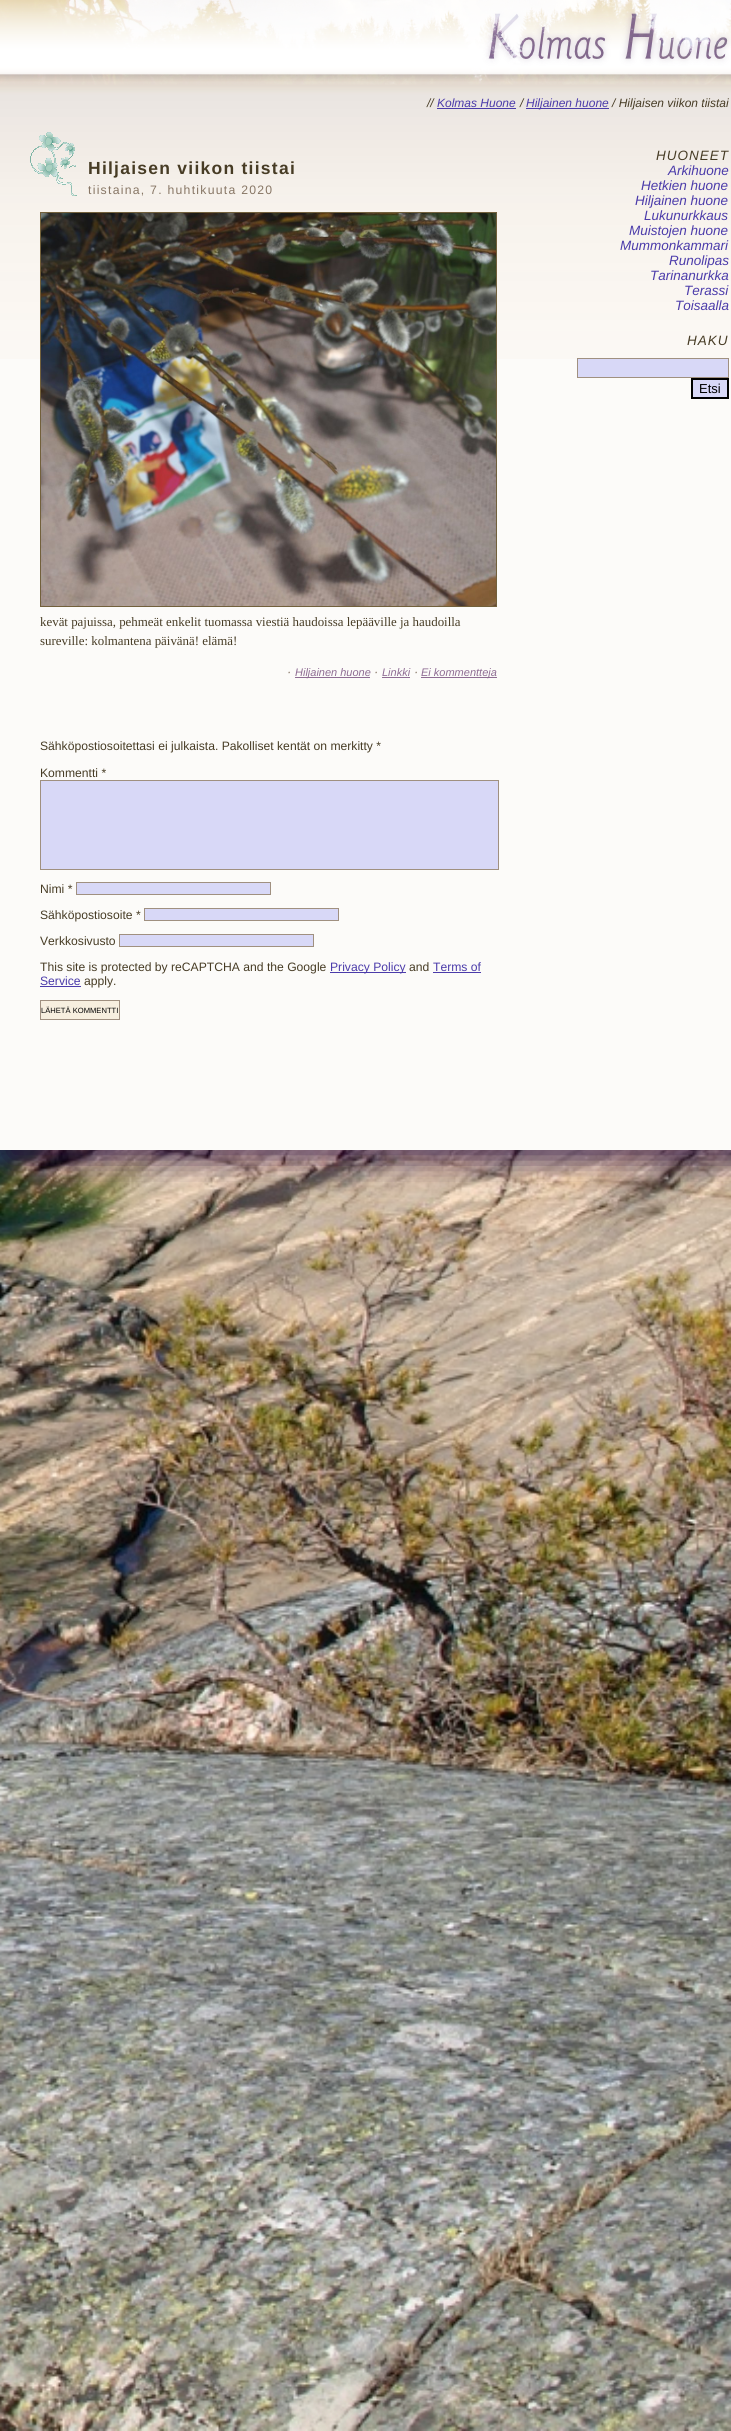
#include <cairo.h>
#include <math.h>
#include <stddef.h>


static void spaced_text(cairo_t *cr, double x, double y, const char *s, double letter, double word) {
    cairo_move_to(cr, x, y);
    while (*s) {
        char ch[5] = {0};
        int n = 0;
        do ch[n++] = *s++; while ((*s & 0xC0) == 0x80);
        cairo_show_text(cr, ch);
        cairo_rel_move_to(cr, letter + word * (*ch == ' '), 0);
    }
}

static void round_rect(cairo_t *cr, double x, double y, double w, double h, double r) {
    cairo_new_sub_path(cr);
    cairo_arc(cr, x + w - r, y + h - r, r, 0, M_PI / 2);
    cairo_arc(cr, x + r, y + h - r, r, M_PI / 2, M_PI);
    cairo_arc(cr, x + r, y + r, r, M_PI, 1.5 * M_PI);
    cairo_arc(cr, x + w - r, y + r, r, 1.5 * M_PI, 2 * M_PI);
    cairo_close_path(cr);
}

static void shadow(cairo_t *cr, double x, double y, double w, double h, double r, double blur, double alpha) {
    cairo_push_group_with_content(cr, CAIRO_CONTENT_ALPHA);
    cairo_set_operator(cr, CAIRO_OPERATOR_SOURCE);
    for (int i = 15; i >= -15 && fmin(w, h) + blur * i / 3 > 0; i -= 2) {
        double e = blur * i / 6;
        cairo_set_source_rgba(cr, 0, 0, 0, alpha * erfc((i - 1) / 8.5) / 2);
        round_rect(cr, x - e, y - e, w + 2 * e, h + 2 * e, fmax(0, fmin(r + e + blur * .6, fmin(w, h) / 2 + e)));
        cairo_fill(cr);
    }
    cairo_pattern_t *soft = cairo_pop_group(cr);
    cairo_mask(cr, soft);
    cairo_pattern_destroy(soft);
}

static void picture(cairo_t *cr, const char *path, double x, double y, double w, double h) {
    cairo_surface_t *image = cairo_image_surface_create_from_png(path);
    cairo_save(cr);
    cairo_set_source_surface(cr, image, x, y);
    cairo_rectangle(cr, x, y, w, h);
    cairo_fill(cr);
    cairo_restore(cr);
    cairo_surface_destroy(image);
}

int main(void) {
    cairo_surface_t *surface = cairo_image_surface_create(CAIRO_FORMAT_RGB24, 731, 2431);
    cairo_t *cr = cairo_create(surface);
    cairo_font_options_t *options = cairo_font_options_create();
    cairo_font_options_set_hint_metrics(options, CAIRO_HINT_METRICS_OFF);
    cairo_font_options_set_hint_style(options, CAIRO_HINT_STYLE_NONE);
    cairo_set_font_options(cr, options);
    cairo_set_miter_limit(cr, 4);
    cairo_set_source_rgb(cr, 1, 1, 1);
    cairo_paint(cr);
    picture(cr, "img4.png", 0, 1150, 731, 1281);
    cairo_set_source_rgb(cr, 0.118, 0, 0.235);
    shadow(cr, 8, 8, 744, 1150, 0, 16, 0.8);
    cairo_set_source_rgb(cr, 0.988, 0.984, 0.976);
    cairo_rectangle(cr, 0, 359, 731, 791);
    cairo_fill(cr);
    picture(cr, "img1.png", 0, 0, 731, 359);
    cairo_select_font_face(cr, "Liberation Sans", CAIRO_FONT_SLANT_ITALIC, CAIRO_FONT_WEIGHT_NORMAL);
    cairo_set_font_size(cr, 12);
    cairo_set_source_rgb(cr, 0.278, 0.235, 0.145);
    cairo_move_to(cr, 427, 107);
    cairo_show_text(cr, "//");
    cairo_set_source_rgb(cr, 0.294, 0.231, 0.667);
    cairo_move_to(cr, 437, 107);
    cairo_show_text(cr, "Kolmas Huone");
    cairo_rectangle(cr, 437, 108, 79, 1);
    cairo_fill(cr);
    cairo_set_source_rgb(cr, 0.278, 0.235, 0.145);
    cairo_move_to(cr, 520, 107);
    cairo_show_text(cr, "/");
    cairo_set_source_rgb(cr, 0.294, 0.231, 0.667);
    cairo_rectangle(cr, 526, 108, 83, 1);
    cairo_fill(cr);
    cairo_move_to(cr, 526, 107);
    cairo_show_text(cr, "Hiljainen huone");
    cairo_set_source_rgb(cr, 0.278, 0.235, 0.145);
    cairo_move_to(cr, 612, 107);
    cairo_show_text(cr, "/ Hiljaisen viikon tiistai");
    picture(cr, "img2.png", 30, 132, 47, 64);
    cairo_select_font_face(cr, "Liberation Sans", CAIRO_FONT_SLANT_NORMAL, CAIRO_FONT_WEIGHT_BOLD);
    cairo_set_font_size(cr, 17.5);
    spaced_text(cr, 88, 174, "Hiljaisen viikon tiistai", 1.25, 0);
    cairo_select_font_face(cr, "Liberation Sans", CAIRO_FONT_SLANT_NORMAL, CAIRO_FONT_WEIGHT_NORMAL);
    cairo_set_font_size(cr, 12.25);
    cairo_set_source_rgb(cr, 0.529, 0.463, 0.396);
    spaced_text(cr, 88, 194, "tiistaina, 7. huhtikuuta 2020", 1.25, 0);
    cairo_rectangle(cr, 40.5, 212.5, 456, 394);
    cairo_set_source_rgb(cr, 0.447, 0.376, 0.231);
    cairo_set_line_width(cr, 1);
    cairo_stroke(cr);
    picture(cr, "img3.png", 41, 213, 455, 393);
    cairo_select_font_face(cr, "Liberation Serif", CAIRO_FONT_SLANT_NORMAL, CAIRO_FONT_WEIGHT_NORMAL);
    cairo_set_font_size(cr, 12.9);
    cairo_set_source_rgb(cr, 0.278, 0.235, 0.145);
    cairo_move_to(cr, 40, 626);
    cairo_show_text(cr, "kevät pajuissa, pehmeät enkelit tuomassa viestiä haudoissa lepääville ja haudoilla");
    cairo_move_to(cr, 40, 645);
    cairo_show_text(cr, "sureville: kolmantena päivänä! elämä!");
    cairo_select_font_face(cr, "Liberation Sans", CAIRO_FONT_SLANT_ITALIC, CAIRO_FONT_WEIGHT_NORMAL);
    cairo_set_source_rgb(cr, 0.529, 0.463, 0.396);
    cairo_move_to(cr, 287, 676);
    cairo_show_text(cr, "·");
    cairo_set_source_rgb(cr, 0.557, 0.424, 0.576);
    cairo_rectangle(cr, 295, 677, 75, 1);
    cairo_fill(cr);
    cairo_set_font_size(cr, 11);
    cairo_move_to(cr, 295, 676);
    cairo_show_text(cr, "Hiljainen huone");
    cairo_set_font_size(cr, 12.9);
    cairo_set_source_rgb(cr, 0.529, 0.463, 0.396);
    cairo_move_to(cr, 374, 676);
    cairo_show_text(cr, "·");
    cairo_set_font_size(cr, 11);
    cairo_set_source_rgb(cr, 0.557, 0.424, 0.576);
    cairo_move_to(cr, 382, 676);
    cairo_show_text(cr, "Linkki");
    cairo_rectangle(cr, 382, 677, 28, 1);
    cairo_fill(cr);
    cairo_set_font_size(cr, 12.9);
    cairo_set_source_rgb(cr, 0.529, 0.463, 0.396);
    cairo_move_to(cr, 414, 676);
    cairo_show_text(cr, "·");
    cairo_set_source_rgb(cr, 0.557, 0.424, 0.576);
    cairo_rectangle(cr, 421, 677, 76, 1);
    cairo_fill(cr);
    cairo_set_font_size(cr, 11);
    cairo_move_to(cr, 421, 676);
    cairo_show_text(cr, "Ei kommentteja");
    cairo_select_font_face(cr, "Liberation Sans", CAIRO_FONT_SLANT_NORMAL, CAIRO_FONT_WEIGHT_NORMAL);
    cairo_set_font_size(cr, 12.15);
    cairo_set_source_rgb(cr, 0.278, 0.235, 0.145);
    cairo_move_to(cr, 40, 750);
    cairo_show_text(cr, "Sähköpostiosoitettasi ei julkaista. Pakolliset kentät on merkitty *");
    cairo_move_to(cr, 40, 777);
    cairo_show_text(cr, "Kommentti *");
    cairo_set_source_rgb(cr, 0.847, 0.847, 0.965);
    cairo_rectangle(cr, 40.5, 780.5, 458, 89);
    cairo_fill_preserve(cr);
    cairo_set_source_rgb(cr, 0.627, 0.565, 0.502);
    cairo_stroke(cr);
    cairo_set_source_rgb(cr, 0.278, 0.235, 0.145);
    cairo_move_to(cr, 40, 893);
    cairo_show_text(cr, "Nimi *");
    cairo_set_source_rgb(cr, 0.847, 0.847, 0.965);
    cairo_rectangle(cr, 76.5, 882.5, 194, 12);
    cairo_fill_preserve(cr);
    cairo_set_source_rgb(cr, 0.627, 0.565, 0.502);
    cairo_stroke(cr);
    cairo_set_source_rgb(cr, 0.278, 0.235, 0.145);
    cairo_move_to(cr, 40, 919);
    cairo_show_text(cr, "Sähköpostiosoite *");
    cairo_set_source_rgb(cr, 0.847, 0.847, 0.965);
    cairo_rectangle(cr, 144.5, 908.5, 194, 12);
    cairo_fill_preserve(cr);
    cairo_set_source_rgb(cr, 0.627, 0.565, 0.502);
    cairo_stroke(cr);
    cairo_set_source_rgb(cr, 0.278, 0.235, 0.145);
    cairo_move_to(cr, 40, 945);
    cairo_show_text(cr, "Verkkosivusto");
    cairo_set_source_rgb(cr, 0.847, 0.847, 0.965);
    cairo_rectangle(cr, 119.5, 934.5, 194, 12);
    cairo_fill_preserve(cr);
    cairo_set_source_rgb(cr, 0.627, 0.565, 0.502);
    cairo_stroke(cr);
    cairo_set_source_rgb(cr, 0.278, 0.235, 0.145);
    cairo_move_to(cr, 40, 971);
    cairo_show_text(cr, "This site is protected by reCAPTCHA and the Google");
    cairo_set_source_rgb(cr, 0.294, 0.231, 0.667);
    cairo_rectangle(cr, 330, 972, 76, 1);
    cairo_fill(cr);
    cairo_move_to(cr, 330, 971);
    cairo_show_text(cr, "Privacy Policy");
    cairo_set_source_rgb(cr, 0.278, 0.235, 0.145);
    cairo_move_to(cr, 409, 971);
    cairo_show_text(cr, "and");
    cairo_set_source_rgb(cr, 0.294, 0.231, 0.667);
    cairo_move_to(cr, 433, 971);
    cairo_show_text(cr, "Terms of");
    cairo_rectangle(cr, 433, 972, 48, 1);
    cairo_fill(cr);
    cairo_move_to(cr, 40, 985);
    cairo_show_text(cr, "Service");
    cairo_rectangle(cr, 40, 986, 41, 1);
    cairo_fill(cr);
    cairo_set_source_rgb(cr, 0.278, 0.235, 0.145);
    cairo_move_to(cr, 84, 985);
    cairo_show_text(cr, "apply.");
    cairo_set_source_rgb(cr, 0.965, 0.937, 0.875);
    cairo_rectangle(cr, 40.5, 1000.5, 79, 19);
    cairo_fill_preserve(cr);
    cairo_set_source_rgb(cr, 0.627, 0.565, 0.502);
    cairo_stroke(cr);
    cairo_set_font_size(cr, 7.6);
    cairo_set_source_rgb(cr, 0, 0, 0);
    cairo_move_to(cr, 41, 1013);
    cairo_show_text(cr, "LÄHETÄ KOMMENTTI");
    cairo_select_font_face(cr, "Liberation Sans", CAIRO_FONT_SLANT_ITALIC, CAIRO_FONT_WEIGHT_NORMAL);
    cairo_set_font_size(cr, 13.5);
    cairo_set_source_rgb(cr, 0.278, 0.235, 0.145);
    spaced_text(cr, 656, 160, "HUONEET", 1, 0);
    cairo_set_source_rgb(cr, 0.294, 0.231, 0.667);
    cairo_move_to(cr, 668, 175);
    cairo_show_text(cr, "Arkihuone");
    cairo_move_to(cr, 641, 190);
    cairo_show_text(cr, "Hetkien huone");
    cairo_move_to(cr, 635, 205);
    cairo_show_text(cr, "Hiljainen huone");
    cairo_move_to(cr, 644, 220);
    cairo_show_text(cr, "Lukunurkkaus");
    cairo_move_to(cr, 629, 235);
    cairo_show_text(cr, "Muistojen huone");
    cairo_move_to(cr, 620, 250);
    cairo_show_text(cr, "Mummonkammari");
    cairo_move_to(cr, 669, 265);
    cairo_show_text(cr, "Runolipas");
    cairo_move_to(cr, 650, 280);
    cairo_show_text(cr, "Tarinanurkka");
    cairo_move_to(cr, 684, 295);
    cairo_show_text(cr, "Terassi");
    cairo_move_to(cr, 675, 310);
    cairo_show_text(cr, "Toisaalla");
    cairo_set_source_rgb(cr, 0.278, 0.235, 0.145);
    spaced_text(cr, 687, 345, "HAKU", 1, 0);
    cairo_set_source_rgb(cr, 0.847, 0.847, 0.965);
    cairo_rectangle(cr, 577.5, 358.5, 151, 19);
    cairo_fill_preserve(cr);
    cairo_set_source_rgb(cr, 0.627, 0.565, 0.502);
    cairo_stroke(cr);
    cairo_set_source_rgb(cr, 0.847, 0.847, 0.965);
    cairo_rectangle(cr, 692, 379, 36, 19);
    cairo_fill_preserve(cr);
    cairo_set_source_rgb(cr, 0, 0, 0);
    cairo_set_line_width(cr, 2);
    cairo_stroke(cr);
    cairo_select_font_face(cr, "Liberation Sans", CAIRO_FONT_SLANT_NORMAL, CAIRO_FONT_WEIGHT_NORMAL);
    cairo_set_font_size(cr, 13);
    cairo_move_to(cr, 699, 393);
    cairo_show_text(cr, "Etsi");
    cairo_surface_write_to_png(surface, "page.png");
    cairo_font_options_destroy(options);
    cairo_destroy(cr);
    cairo_surface_destroy(surface);
    return 0;
}
